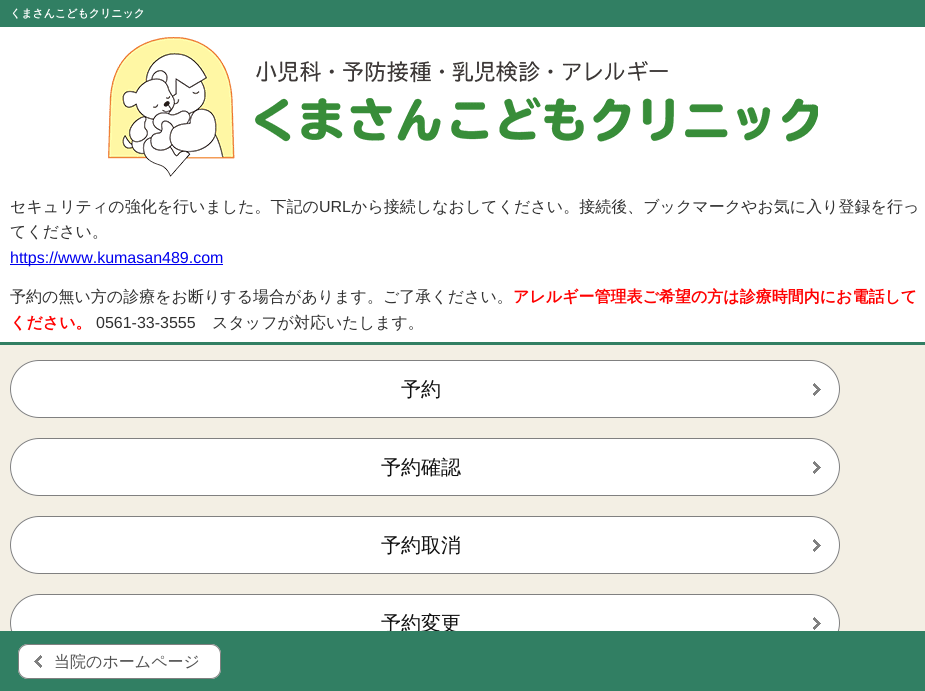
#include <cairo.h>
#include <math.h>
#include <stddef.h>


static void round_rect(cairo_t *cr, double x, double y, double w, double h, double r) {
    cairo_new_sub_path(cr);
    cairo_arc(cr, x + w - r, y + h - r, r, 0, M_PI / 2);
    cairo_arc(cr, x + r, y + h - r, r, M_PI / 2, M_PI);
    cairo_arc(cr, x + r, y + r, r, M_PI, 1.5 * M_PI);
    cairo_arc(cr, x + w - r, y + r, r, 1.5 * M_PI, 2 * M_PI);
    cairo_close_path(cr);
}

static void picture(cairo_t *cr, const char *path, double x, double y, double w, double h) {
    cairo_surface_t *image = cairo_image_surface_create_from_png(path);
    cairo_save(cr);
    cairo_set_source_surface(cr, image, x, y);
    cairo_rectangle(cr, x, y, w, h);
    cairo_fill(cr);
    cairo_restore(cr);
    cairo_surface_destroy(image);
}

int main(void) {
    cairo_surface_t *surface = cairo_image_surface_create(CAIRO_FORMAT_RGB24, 925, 691);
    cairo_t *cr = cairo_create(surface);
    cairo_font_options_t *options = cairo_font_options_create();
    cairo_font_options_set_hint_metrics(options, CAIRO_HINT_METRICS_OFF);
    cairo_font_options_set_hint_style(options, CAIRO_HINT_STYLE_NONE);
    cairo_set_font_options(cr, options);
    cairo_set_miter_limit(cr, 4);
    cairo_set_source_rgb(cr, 0.953, 0.937, 0.894);
    cairo_paint(cr);
    cairo_set_source_rgb(cr, 0.192, 0.498, 0.388);
    cairo_rectangle(cr, 0, 0, 925, 27);
    cairo_fill(cr);
    cairo_select_font_face(cr, "WenQuanYi Zen Hei", CAIRO_FONT_SLANT_NORMAL, CAIRO_FONT_WEIGHT_BOLD);
    cairo_set_font_size(cr, 11);
    cairo_set_source_rgb(cr, 1, 1, 1);
    cairo_move_to(cr, 10, 17);
    cairo_show_text(cr, "くまさんこどもクリニック");
    cairo_rectangle(cr, 0, 27, 925, 315);
    cairo_fill(cr);
    cairo_set_source_rgb(cr, 0.192, 0.498, 0.388);
    cairo_rectangle(cr, 0, 342, 925, 3);
    cairo_fill(cr);
    picture(cr, "img1.png", 108, 37, 710, 140);
    cairo_select_font_face(cr, "WenQuanYi Zen Hei Medium", CAIRO_FONT_SLANT_NORMAL, CAIRO_FONT_WEIGHT_NORMAL);
    cairo_set_font_size(cr, 16);
    cairo_set_source_rgb(cr, 0.188, 0.188, 0.188);
    cairo_move_to(cr, 10, 212);
    cairo_show_text(cr, "セキュリティの強化を行いました。下記の");
    cairo_select_font_face(cr, "Liberation Sans", CAIRO_FONT_SLANT_NORMAL, CAIRO_FONT_WEIGHT_NORMAL);
    cairo_move_to(cr, 319, 212);
    cairo_show_text(cr, "URL");
    cairo_select_font_face(cr, "WenQuanYi Zen Hei Medium", CAIRO_FONT_SLANT_NORMAL, CAIRO_FONT_WEIGHT_NORMAL);
    cairo_move_to(cr, 351, 212);
    cairo_show_text(cr, "から接続しなおしてください。接続後、ブックマークやお気に入り登録を行っ");
    cairo_move_to(cr, 10, 237);
    cairo_show_text(cr, "てください。");
    cairo_set_source_rgb(cr, 0, 0, 0.933);
    cairo_rectangle(cr, 10, 264, 213, 1);
    cairo_fill(cr);
    cairo_select_font_face(cr, "Liberation Sans", CAIRO_FONT_SLANT_NORMAL, CAIRO_FONT_WEIGHT_NORMAL);
    cairo_move_to(cr, 10, 263);
    cairo_show_text(cr, "https://www.kumasan489.com");
    cairo_select_font_face(cr, "WenQuanYi Zen Hei Medium", CAIRO_FONT_SLANT_NORMAL, CAIRO_FONT_WEIGHT_NORMAL);
    cairo_set_source_rgb(cr, 0.188, 0.188, 0.188);
    cairo_move_to(cr, 10, 302);
    cairo_show_text(cr, "予約の無い方の診療をお断りする場合があります。ご了承ください。");
    cairo_select_font_face(cr, "WenQuanYi Zen Hei", CAIRO_FONT_SLANT_NORMAL, CAIRO_FONT_WEIGHT_BOLD);
    cairo_set_source_rgb(cr, 1, 0, 0);
    cairo_move_to(cr, 513, 302);
    cairo_show_text(cr, "アレルギー管理表ご希望の方は診療時間内にお電話して");
    cairo_move_to(cr, 10, 328);
    cairo_show_text(cr, "ください。");
    cairo_select_font_face(cr, "Liberation Sans", CAIRO_FONT_SLANT_NORMAL, CAIRO_FONT_WEIGHT_NORMAL);
    cairo_set_source_rgb(cr, 0.188, 0.188, 0.188);
    cairo_move_to(cr, 96, 328);
    cairo_show_text(cr, "0561-33-3555");
    cairo_select_font_face(cr, "WenQuanYi Zen Hei Medium", CAIRO_FONT_SLANT_NORMAL, CAIRO_FONT_WEIGHT_NORMAL);
    cairo_move_to(cr, 212, 328);
    cairo_show_text(cr, "スタッフが対応いたします。");
    cairo_set_source_rgb(cr, 1, 1, 1);
    round_rect(cr, 10, 360, 830, 58, 29);
    cairo_fill(cr);
    picture(cr, "img2.png", 813, 383, 8, 13);
    round_rect(cr, 10.5, 360.5, 829, 57, 28.5);
    cairo_set_source_rgb(cr, 0.502, 0.502, 0.502);
    cairo_set_line_width(cr, 1);
    cairo_stroke(cr);
    cairo_set_font_size(cr, 20);
    cairo_set_source_rgb(cr, 0.063, 0.063, 0.063);
    cairo_move_to(cr, 401, 396);
    cairo_show_text(cr, "予約");
    cairo_set_source_rgb(cr, 1, 1, 1);
    round_rect(cr, 10, 438, 830, 58, 29);
    cairo_fill(cr);
    picture(cr, "img2.png", 813, 461, 8, 13);
    round_rect(cr, 10.5, 438.5, 829, 57, 28.5);
    cairo_set_source_rgb(cr, 0.502, 0.502, 0.502);
    cairo_stroke(cr);
    cairo_set_source_rgb(cr, 0.063, 0.063, 0.063);
    cairo_move_to(cr, 381, 474);
    cairo_show_text(cr, "予約確認");
    cairo_set_source_rgb(cr, 1, 1, 1);
    round_rect(cr, 10, 516, 830, 58, 29);
    cairo_fill(cr);
    picture(cr, "img2.png", 813, 539, 8, 13);
    round_rect(cr, 10.5, 516.5, 829, 57, 28.5);
    cairo_set_source_rgb(cr, 0.502, 0.502, 0.502);
    cairo_stroke(cr);
    cairo_set_source_rgb(cr, 0.063, 0.063, 0.063);
    cairo_move_to(cr, 381, 552);
    cairo_show_text(cr, "予約取消");
    cairo_set_source_rgb(cr, 1, 1, 1);
    round_rect(cr, 10, 594, 830, 58, 29);
    cairo_fill(cr);
    picture(cr, "img2.png", 813, 617, 8, 13);
    round_rect(cr, 10.5, 594.5, 829, 57, 28.5);
    cairo_set_source_rgb(cr, 0.502, 0.502, 0.502);
    cairo_stroke(cr);
    cairo_set_source_rgb(cr, 0.063, 0.063, 0.063);
    cairo_move_to(cr, 381, 630);
    cairo_show_text(cr, "予約変更");
    cairo_set_source_rgb(cr, 0.192, 0.498, 0.388);
    cairo_rectangle(cr, 0, 631, 925, 60);
    cairo_fill(cr);
    cairo_set_source_rgb(cr, 1, 1, 1);
    round_rect(cr, 18, 644, 203, 35, 10);
    cairo_fill(cr);
    picture(cr, "img3.png", 34, 655, 8, 13);
    round_rect(cr, 18.5, 644.5, 202, 34, 9.5);
    cairo_set_source_rgb(cr, 0.502, 0.502, 0.502);
    cairo_stroke(cr);
    cairo_set_font_size(cr, 16);
    cairo_set_source_rgb(cr, 0.314, 0.314, 0.314);
    cairo_move_to(cr, 54, 667);
    cairo_show_text(cr, "当院のホームページ");
    cairo_surface_write_to_png(surface, "page.png");
    cairo_font_options_destroy(options);
    cairo_destroy(cr);
    cairo_surface_destroy(surface);
    return 0;
}
